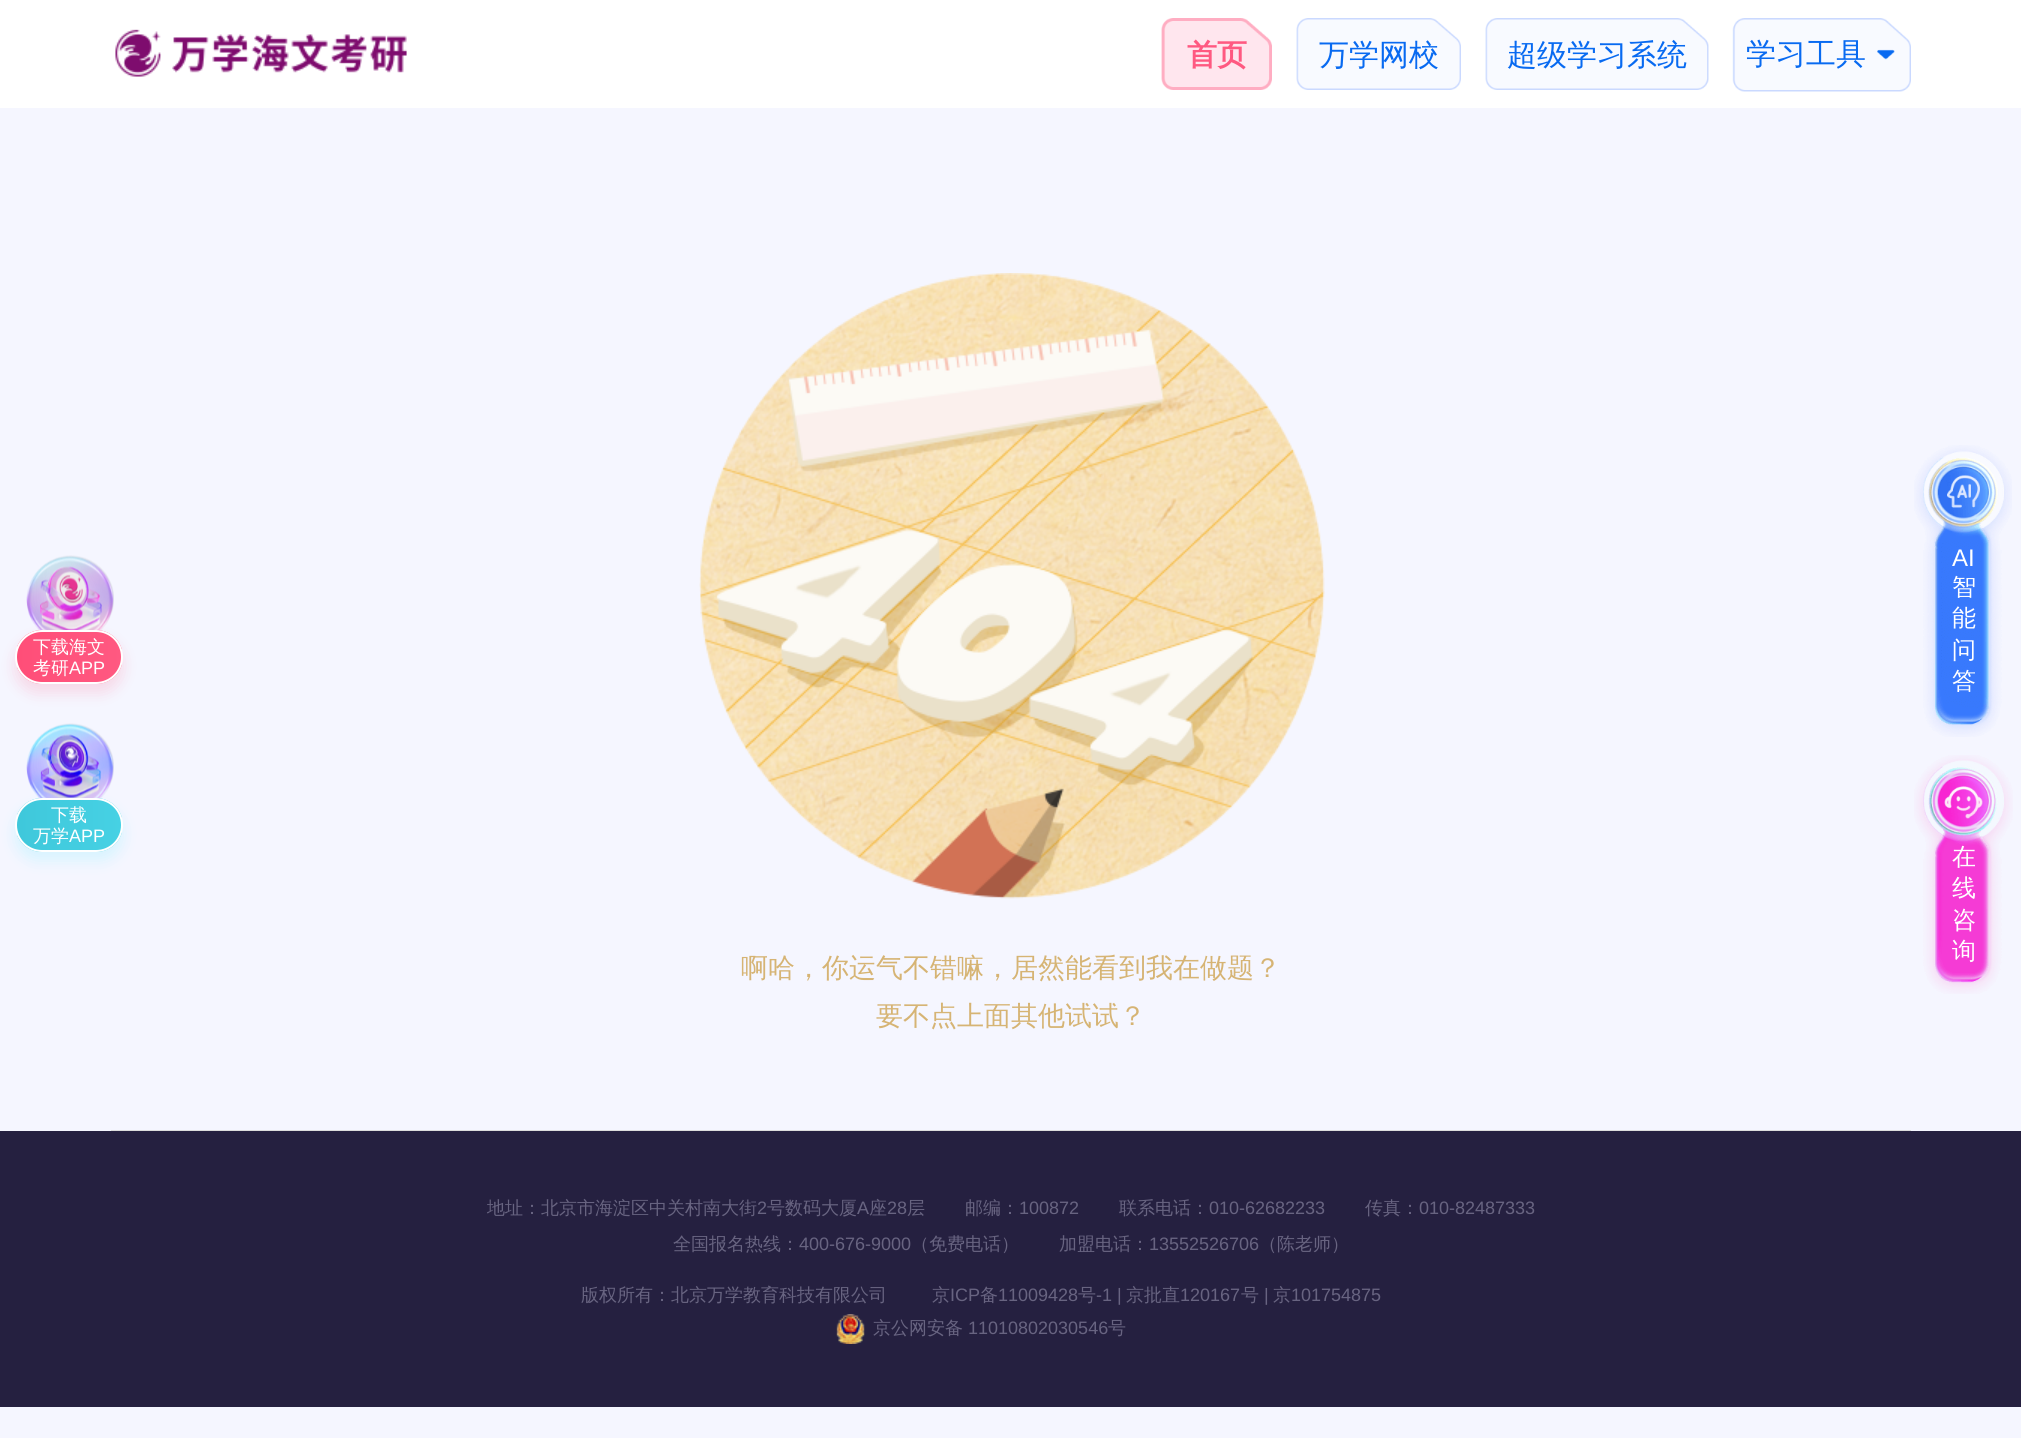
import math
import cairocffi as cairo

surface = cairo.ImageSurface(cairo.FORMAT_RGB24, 2021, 1438)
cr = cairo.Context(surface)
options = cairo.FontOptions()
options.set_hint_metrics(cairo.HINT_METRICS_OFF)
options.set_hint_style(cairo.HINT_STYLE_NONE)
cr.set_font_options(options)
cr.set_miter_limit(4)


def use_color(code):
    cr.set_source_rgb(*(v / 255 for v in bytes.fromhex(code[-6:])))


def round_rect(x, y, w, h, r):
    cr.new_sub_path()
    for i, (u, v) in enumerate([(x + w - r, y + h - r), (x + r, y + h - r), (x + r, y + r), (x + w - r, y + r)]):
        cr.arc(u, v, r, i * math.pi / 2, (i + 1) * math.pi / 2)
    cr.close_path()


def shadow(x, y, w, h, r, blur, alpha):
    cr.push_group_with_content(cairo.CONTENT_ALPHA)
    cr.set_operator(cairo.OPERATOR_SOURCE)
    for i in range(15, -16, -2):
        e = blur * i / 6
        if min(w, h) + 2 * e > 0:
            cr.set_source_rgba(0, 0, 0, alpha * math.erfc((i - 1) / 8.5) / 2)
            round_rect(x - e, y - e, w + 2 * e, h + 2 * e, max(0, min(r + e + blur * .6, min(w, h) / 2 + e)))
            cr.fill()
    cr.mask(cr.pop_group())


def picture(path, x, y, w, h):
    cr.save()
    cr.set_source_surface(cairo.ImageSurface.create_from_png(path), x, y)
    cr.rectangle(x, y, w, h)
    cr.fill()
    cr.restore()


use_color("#f5f6ff")
cr.paint()
use_color("#ffffff")
cr.rectangle(0, 0, 2021, 108)
cr.fill()
picture("img1.png", 115, 29, 292, 48)
picture("img2.png", 1161, 18, 111, 72)
cr.select_font_face("WenQuanYi Zen Hei", cairo.FONT_SLANT_NORMAL, cairo.FONT_WEIGHT_BOLD)
cr.set_font_size(30)
use_color("#ff5981")
cr.move_to(1187, 65)
cr.show_text("首页")
picture("img3.png", 1296, 18, 165, 72)
cr.select_font_face("WenQuanYi Zen Hei Medium")
use_color("#086af1")
cr.move_to(1319, 65)
cr.show_text("万学网校")
picture("img4.png", 1485, 18, 224, 72)
cr.move_to(1507, 65)
cr.show_text("超级学习系统")
picture("img5.png", 1732, 18, 179, 74)
picture("img6.png", 1877, 49, 18, 11)
cr.move_to(1746, 64)
cr.show_text("学习工具")
picture("img7.png", 26, 555, 88, 76)
use_color("#ff2d5f")
shadow(15, 639, 108, 54, 27, 7.5, 0.15)
cr.save()
round_rect(15, 630, 108, 54, 27)
cr.clip()
gradient = cairo.LinearGradient(17, 657, 122, 657)
gradient.add_color_stop_rgba(0.01, 1, 0.306, 0.471, 1)
gradient.add_color_stop_rgba(1, 1, 0.349, 0.506, 1)
cr.set_source(gradient)
cr.rectangle(17, 630, 105, 54)
cr.fill()
cr.restore()
round_rect(16, 631, 106, 52, 26)
use_color("#ffffff")
cr.stroke()
cr.set_font_size(18)
cr.move_to(33, 653)
cr.show_text("下载海文")
cr.move_to(33, 674)
cr.show_text("考研")
cr.select_font_face("Liberation Sans")
cr.move_to(69, 674)
cr.show_text("APP")
picture("img8.png", 26, 723, 88, 76)
use_color("#2ce6ff")
shadow(15, 807, 108, 54, 27, 7.5, 0.15)
cr.save()
round_rect(15, 798, 108, 54, 27)
cr.clip()
gradient = cairo.LinearGradient(17, 825, 122, 825)
gradient.add_color_stop_rgba(0.01, 0.247, 0.784, 0.859, 1)
gradient.add_color_stop_rgba(1, 0.275, 0.82, 0.894, 1)
cr.set_source(gradient)
cr.rectangle(17, 798, 105, 54)
cr.fill()
cr.restore()
round_rect(16, 799, 106, 52, 26)
use_color("#ffffff")
cr.stroke()
cr.select_font_face("WenQuanYi Zen Hei Medium")
cr.move_to(51, 821)
cr.show_text("下载")
cr.move_to(33, 842)
cr.show_text("万学")
cr.select_font_face("Liberation Sans")
cr.move_to(69, 842)
cr.show_text("APP")
picture("img9.png", 1914, 445, 98, 292)
cr.set_font_size(24)
cr.move_to(1952, 566)
cr.show_text("AI")
cr.select_font_face("WenQuanYi Zen Hei Medium")
cr.move_to(1952, 595)
cr.show_text("智")
cr.move_to(1952, 626)
cr.show_text("能")
cr.move_to(1952, 658)
cr.show_text("问")
cr.move_to(1952, 689)
cr.show_text("答")
picture("img10.png", 1914, 755, 99, 239)
cr.move_to(1952, 865)
cr.show_text("在")
cr.move_to(1952, 896)
cr.show_text("线")
cr.move_to(1952, 928)
cr.show_text("咨")
cr.move_to(1952, 959)
cr.show_text("询")
use_color("#dddddd")
cr.rectangle(111, 1130, 1800, 1)
cr.fill()
picture("img11.png", 699, 273, 626, 626)
cr.set_font_size(27)
use_color("#d6b474")
cr.move_to(741, 977)
cr.show_text("啊哈，你运气不错嘛，居然能看到我在做题？")
cr.move_to(876, 1025)
cr.show_text("要不点上面其他试试？")
use_color("#252040")
cr.rectangle(0, 1131, 2021, 276)
cr.fill()
cr.set_font_size(18)
use_color("#686481")
cr.move_to(487, 1214)
cr.show_text("地址：北京市海淀区中关村南大街")
cr.select_font_face("Liberation Sans")
cr.move_to(757, 1214)
cr.show_text("2")
cr.select_font_face("WenQuanYi Zen Hei Medium")
cr.move_to(767, 1214)
cr.show_text("号数码大厦")
cr.select_font_face("Liberation Sans")
cr.move_to(857, 1214)
cr.show_text("A")
cr.select_font_face("WenQuanYi Zen Hei Medium")
cr.move_to(869, 1214)
cr.show_text("座")
cr.select_font_face("Liberation Sans")
cr.move_to(887, 1214)
cr.show_text("28")
cr.select_font_face("WenQuanYi Zen Hei Medium")
cr.move_to(907, 1214)
cr.show_text("层")
cr.move_to(965, 1214)
cr.show_text("邮编：")
cr.select_font_face("Liberation Sans")
cr.move_to(1019, 1214)
cr.show_text("100872")
cr.select_font_face("WenQuanYi Zen Hei Medium")
cr.move_to(1119, 1214)
cr.show_text("联系电话：")
cr.select_font_face("Liberation Sans")
cr.move_to(1209, 1214)
cr.show_text("010-62682233")
cr.select_font_face("WenQuanYi Zen Hei Medium")
cr.move_to(1365, 1214)
cr.show_text("传真：")
cr.select_font_face("Liberation Sans")
cr.move_to(1419, 1214)
cr.show_text("010-82487333")
cr.select_font_face("WenQuanYi Zen Hei Medium")
cr.move_to(673, 1250)
cr.show_text("全国报名热线：")
cr.select_font_face("Liberation Sans")
cr.move_to(799, 1250)
cr.show_text("400-676-9000")
cr.select_font_face("WenQuanYi Zen Hei Medium")
cr.move_to(911, 1250)
cr.show_text("（免费电话）")
cr.move_to(1059, 1250)
cr.show_text("加盟电话：")
cr.select_font_face("Liberation Sans")
cr.move_to(1149, 1250)
cr.show_text("13552526706")
cr.select_font_face("WenQuanYi Zen Hei Medium")
cr.move_to(1259, 1250)
cr.show_text("（陈老师）")
cr.move_to(581, 1301)
cr.show_text("版权所有：北京万学教育科技有限公司")
cr.move_to(932, 1301)
cr.show_text("京")
cr.select_font_face("Liberation Sans")
cr.move_to(950, 1301)
cr.show_text("ICP")
cr.select_font_face("WenQuanYi Zen Hei Medium")
cr.move_to(980, 1301)
cr.show_text("备")
cr.select_font_face("Liberation Sans")
cr.move_to(998, 1301)
cr.show_text("11009428")
cr.select_font_face("WenQuanYi Zen Hei Medium")
cr.move_to(1078, 1301)
cr.show_text("号")
cr.select_font_face("Liberation Sans")
cr.move_to(1096, 1301)
cr.show_text("-1 |")
cr.select_font_face("WenQuanYi Zen Hei Medium")
cr.move_to(1126, 1301)
cr.show_text("京批直")
cr.select_font_face("Liberation Sans")
cr.move_to(1180, 1301)
cr.show_text("120167")
cr.select_font_face("WenQuanYi Zen Hei Medium")
cr.move_to(1241, 1301)
cr.show_text("号")
cr.select_font_face("Liberation Sans")
cr.move_to(1264, 1301)
cr.show_text("|")
cr.select_font_face("WenQuanYi Zen Hei Medium")
cr.move_to(1273, 1301)
cr.show_text("京")
cr.select_font_face("Liberation Sans")
cr.move_to(1291, 1301)
cr.show_text("101754875")
picture("img12.png", 836, 1314, 29, 30)
cr.select_font_face("WenQuanYi Zen Hei Medium")
cr.move_to(873, 1334)
cr.show_text("京公网安备")
cr.select_font_face("Liberation Sans")
cr.move_to(968, 1334)
cr.show_text("11010802030546")
cr.select_font_face("WenQuanYi Zen Hei Medium")
cr.move_to(1108, 1334)
cr.show_text("号")
surface.write_to_png("result.png")
